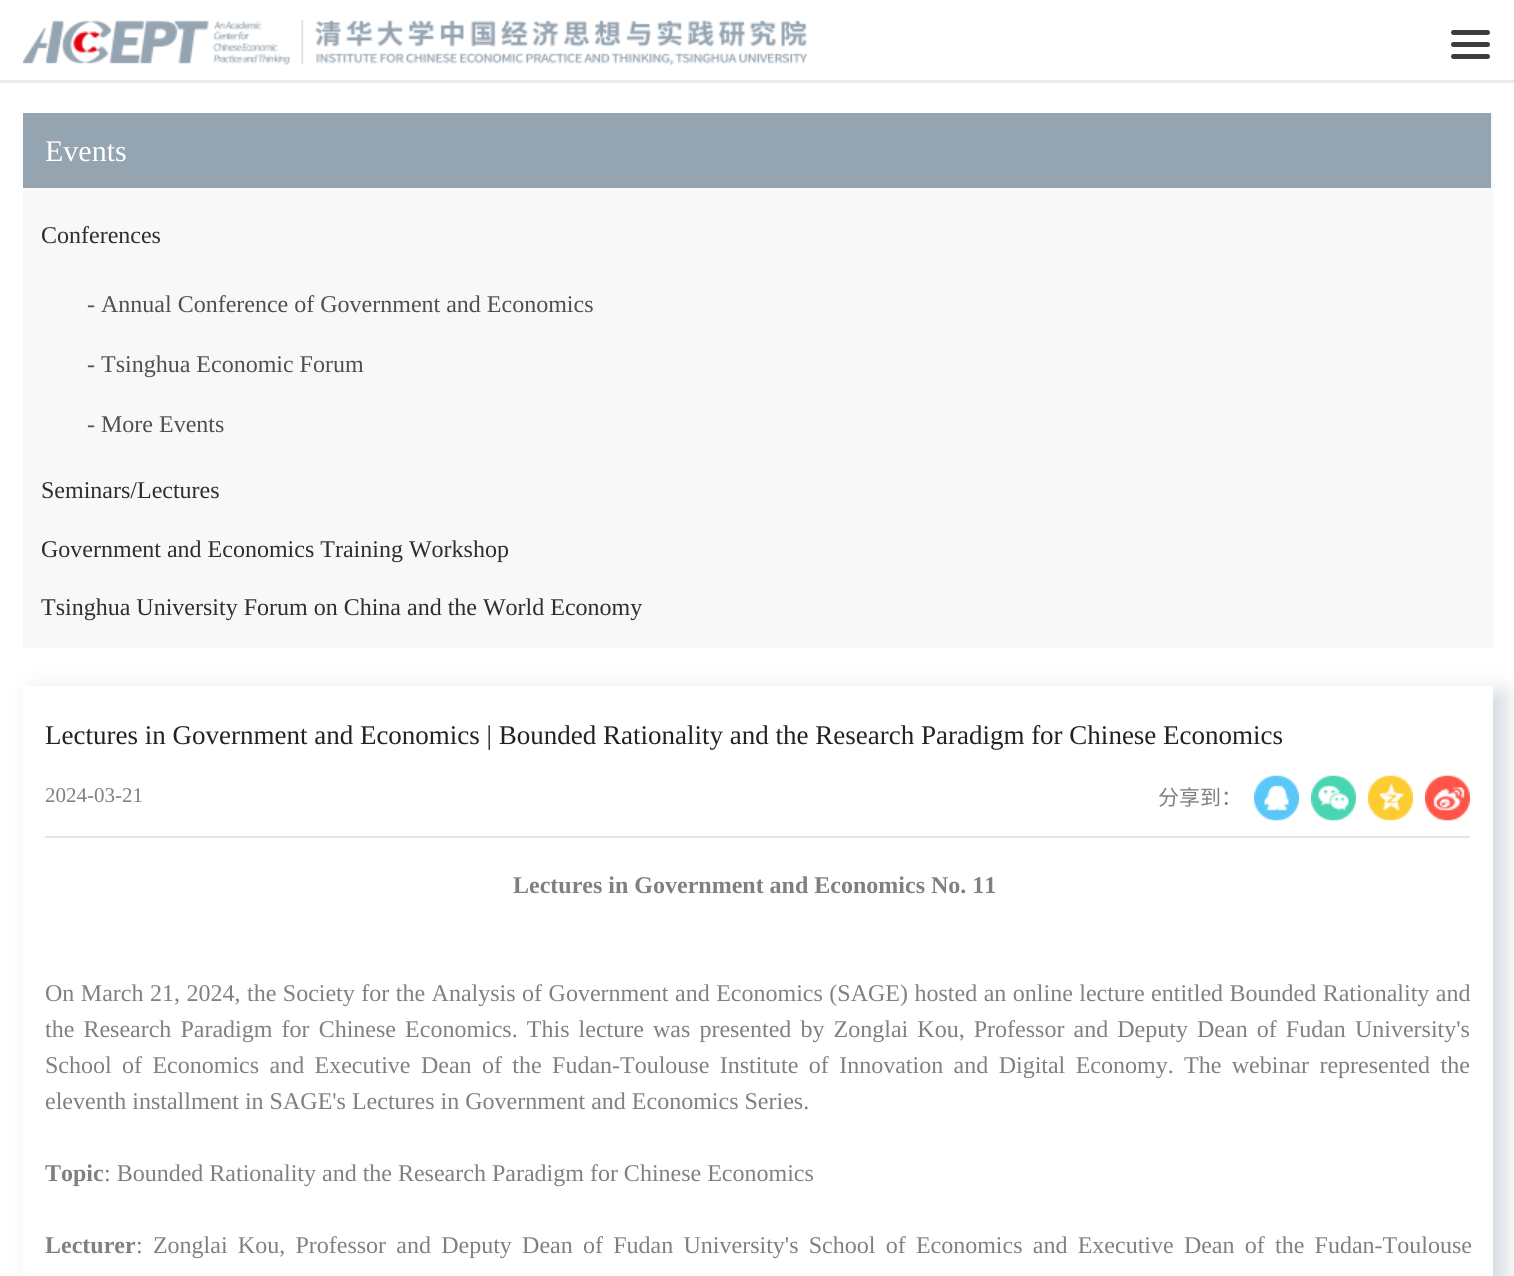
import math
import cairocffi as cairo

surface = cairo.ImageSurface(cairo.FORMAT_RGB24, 1514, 1276)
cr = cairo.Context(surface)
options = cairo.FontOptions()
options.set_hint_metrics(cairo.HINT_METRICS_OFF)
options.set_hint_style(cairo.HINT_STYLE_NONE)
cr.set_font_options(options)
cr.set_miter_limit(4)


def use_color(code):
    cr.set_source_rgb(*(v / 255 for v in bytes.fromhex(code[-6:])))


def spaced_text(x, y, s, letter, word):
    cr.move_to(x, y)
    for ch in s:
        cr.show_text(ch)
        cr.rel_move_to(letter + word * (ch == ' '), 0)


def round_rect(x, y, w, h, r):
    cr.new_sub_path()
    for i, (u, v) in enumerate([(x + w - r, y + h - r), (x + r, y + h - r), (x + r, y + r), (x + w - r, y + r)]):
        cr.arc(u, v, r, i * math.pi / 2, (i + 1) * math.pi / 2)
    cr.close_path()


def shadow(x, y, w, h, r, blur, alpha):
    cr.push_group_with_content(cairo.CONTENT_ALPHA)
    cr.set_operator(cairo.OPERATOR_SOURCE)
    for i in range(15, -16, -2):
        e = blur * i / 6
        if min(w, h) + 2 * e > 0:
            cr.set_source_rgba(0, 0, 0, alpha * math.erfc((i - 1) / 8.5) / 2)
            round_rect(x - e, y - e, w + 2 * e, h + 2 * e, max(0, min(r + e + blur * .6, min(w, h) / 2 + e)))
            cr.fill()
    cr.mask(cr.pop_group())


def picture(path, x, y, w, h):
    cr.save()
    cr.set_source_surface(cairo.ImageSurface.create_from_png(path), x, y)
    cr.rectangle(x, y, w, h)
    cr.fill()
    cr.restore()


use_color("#ffffff")
cr.paint()
use_color("#eaeaea")
cr.rectangle(0, 80, 1514, 3)
cr.fill()
picture("img1.png", 23, 20, 784, 45)
use_color("#3c3c3c")
round_rect(1451, 30, 39, 5, 2.5)
cr.fill()
round_rect(1451, 42, 39, 5, 2.5)
cr.fill()
round_rect(1451, 54, 39, 5, 2.5)
cr.fill()
use_color("#f8f8f8")
cr.rectangle(23, 113, 1470, 535)
cr.fill()
use_color("#95a4b1")
cr.rectangle(23, 113, 1468, 75)
cr.fill()
cr.select_font_face("Liberation Serif")
cr.set_font_size(30)
use_color("#ffffff")
cr.move_to(45, 161)
cr.show_text("Events")
cr.set_font_size(24)
use_color("#2e2e2e")
cr.move_to(41, 243)
cr.show_text("Conferences")
use_color("#4f4f4f")
cr.move_to(87, 312)
cr.show_text("- Annual Conference of Government and Economics")
cr.move_to(87, 372)
cr.show_text("- Tsinghua Economic Forum")
cr.move_to(87, 432)
cr.show_text("- More Events")
use_color("#2e2e2e")
cr.move_to(41, 498)
cr.show_text("Seminars/Lectures")
cr.move_to(41, 557)
cr.show_text("Government and Economics Training Workshop")
cr.move_to(41, 615)
cr.show_text("Tsinghua University Forum on China and the World Economy")
use_color("#95a4b1")
shadow(35, 693, 1470, 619, 0, 12, 0.42)
use_color("#ffffff")
cr.rectangle(23, 686, 1470, 590)
cr.fill()
cr.set_font_size(27)
use_color("#222222")
cr.move_to(45, 744)
cr.show_text("Lectures in Government and Economics | Bounded Rationality and the Research Paradigm for Chinese Economics")
use_color("#e5e5e5")
cr.rectangle(45, 836, 1425, 2)
cr.fill()
cr.set_font_size(21)
use_color("#808080")
cr.move_to(45, 802)
cr.show_text("2024-03-21")
cr.select_font_face("Noto Sans CJK SC")
cr.move_to(1158, 805)
cr.show_text("分享到：")
picture("img2.png", 1254, 775, 45, 46)
picture("img3.png", 1311, 775, 45, 46)
picture("img4.png", 1368, 775, 45, 46)
picture("img5.png", 1425, 775, 45, 46)
cr.select_font_face("Liberation Serif", cairo.FONT_SLANT_NORMAL, cairo.FONT_WEIGHT_BOLD)
cr.set_font_size(24)
cr.move_to(513, 893)
cr.show_text("Lectures in Government and Economics No. 11")
cr.select_font_face("Liberation Serif")
spaced_text(45, 1001, "On March 21, 2024, the Society for the Analysis of Government and Economics (SAGE) hosted an online lecture entitled Bounded Rationality and", 0, 0.5)
spaced_text(45, 1037, "the Research Paradigm for Chinese Economics. This lecture was presented by Zonglai Kou, Professor and Deputy Dean of Fudan University's", 0, 3.1)
spaced_text(45, 1073, "School of Economics and Executive Dean of the Fudan-Toulouse Institute of Innovation and Digital Economy. The webinar represented the", 0, 4.4)
cr.move_to(45, 1109)
cr.show_text("eleventh installment in SAGE's Lectures in Government and Economics Series.")
cr.select_font_face("Liberation Serif", cairo.FONT_SLANT_NORMAL, cairo.FONT_WEIGHT_BOLD)
cr.move_to(45, 1181)
cr.show_text("Topic")
cr.select_font_face("Liberation Serif")
cr.move_to(104, 1181)
cr.show_text(": Bounded Rationality and the Research Paradigm for Chinese Economics")
cr.select_font_face("Liberation Serif", cairo.FONT_SLANT_NORMAL, cairo.FONT_WEIGHT_BOLD)
cr.move_to(45, 1253)
cr.show_text("Lecturer")
cr.select_font_face("Liberation Serif")
spaced_text(136, 1253, ": Zonglai Kou, Professor and Deputy Dean of Fudan University's School of Economics and Executive Dean of the Fudan-Toulouse", 0, 4.25)
surface.write_to_png("result.png")
